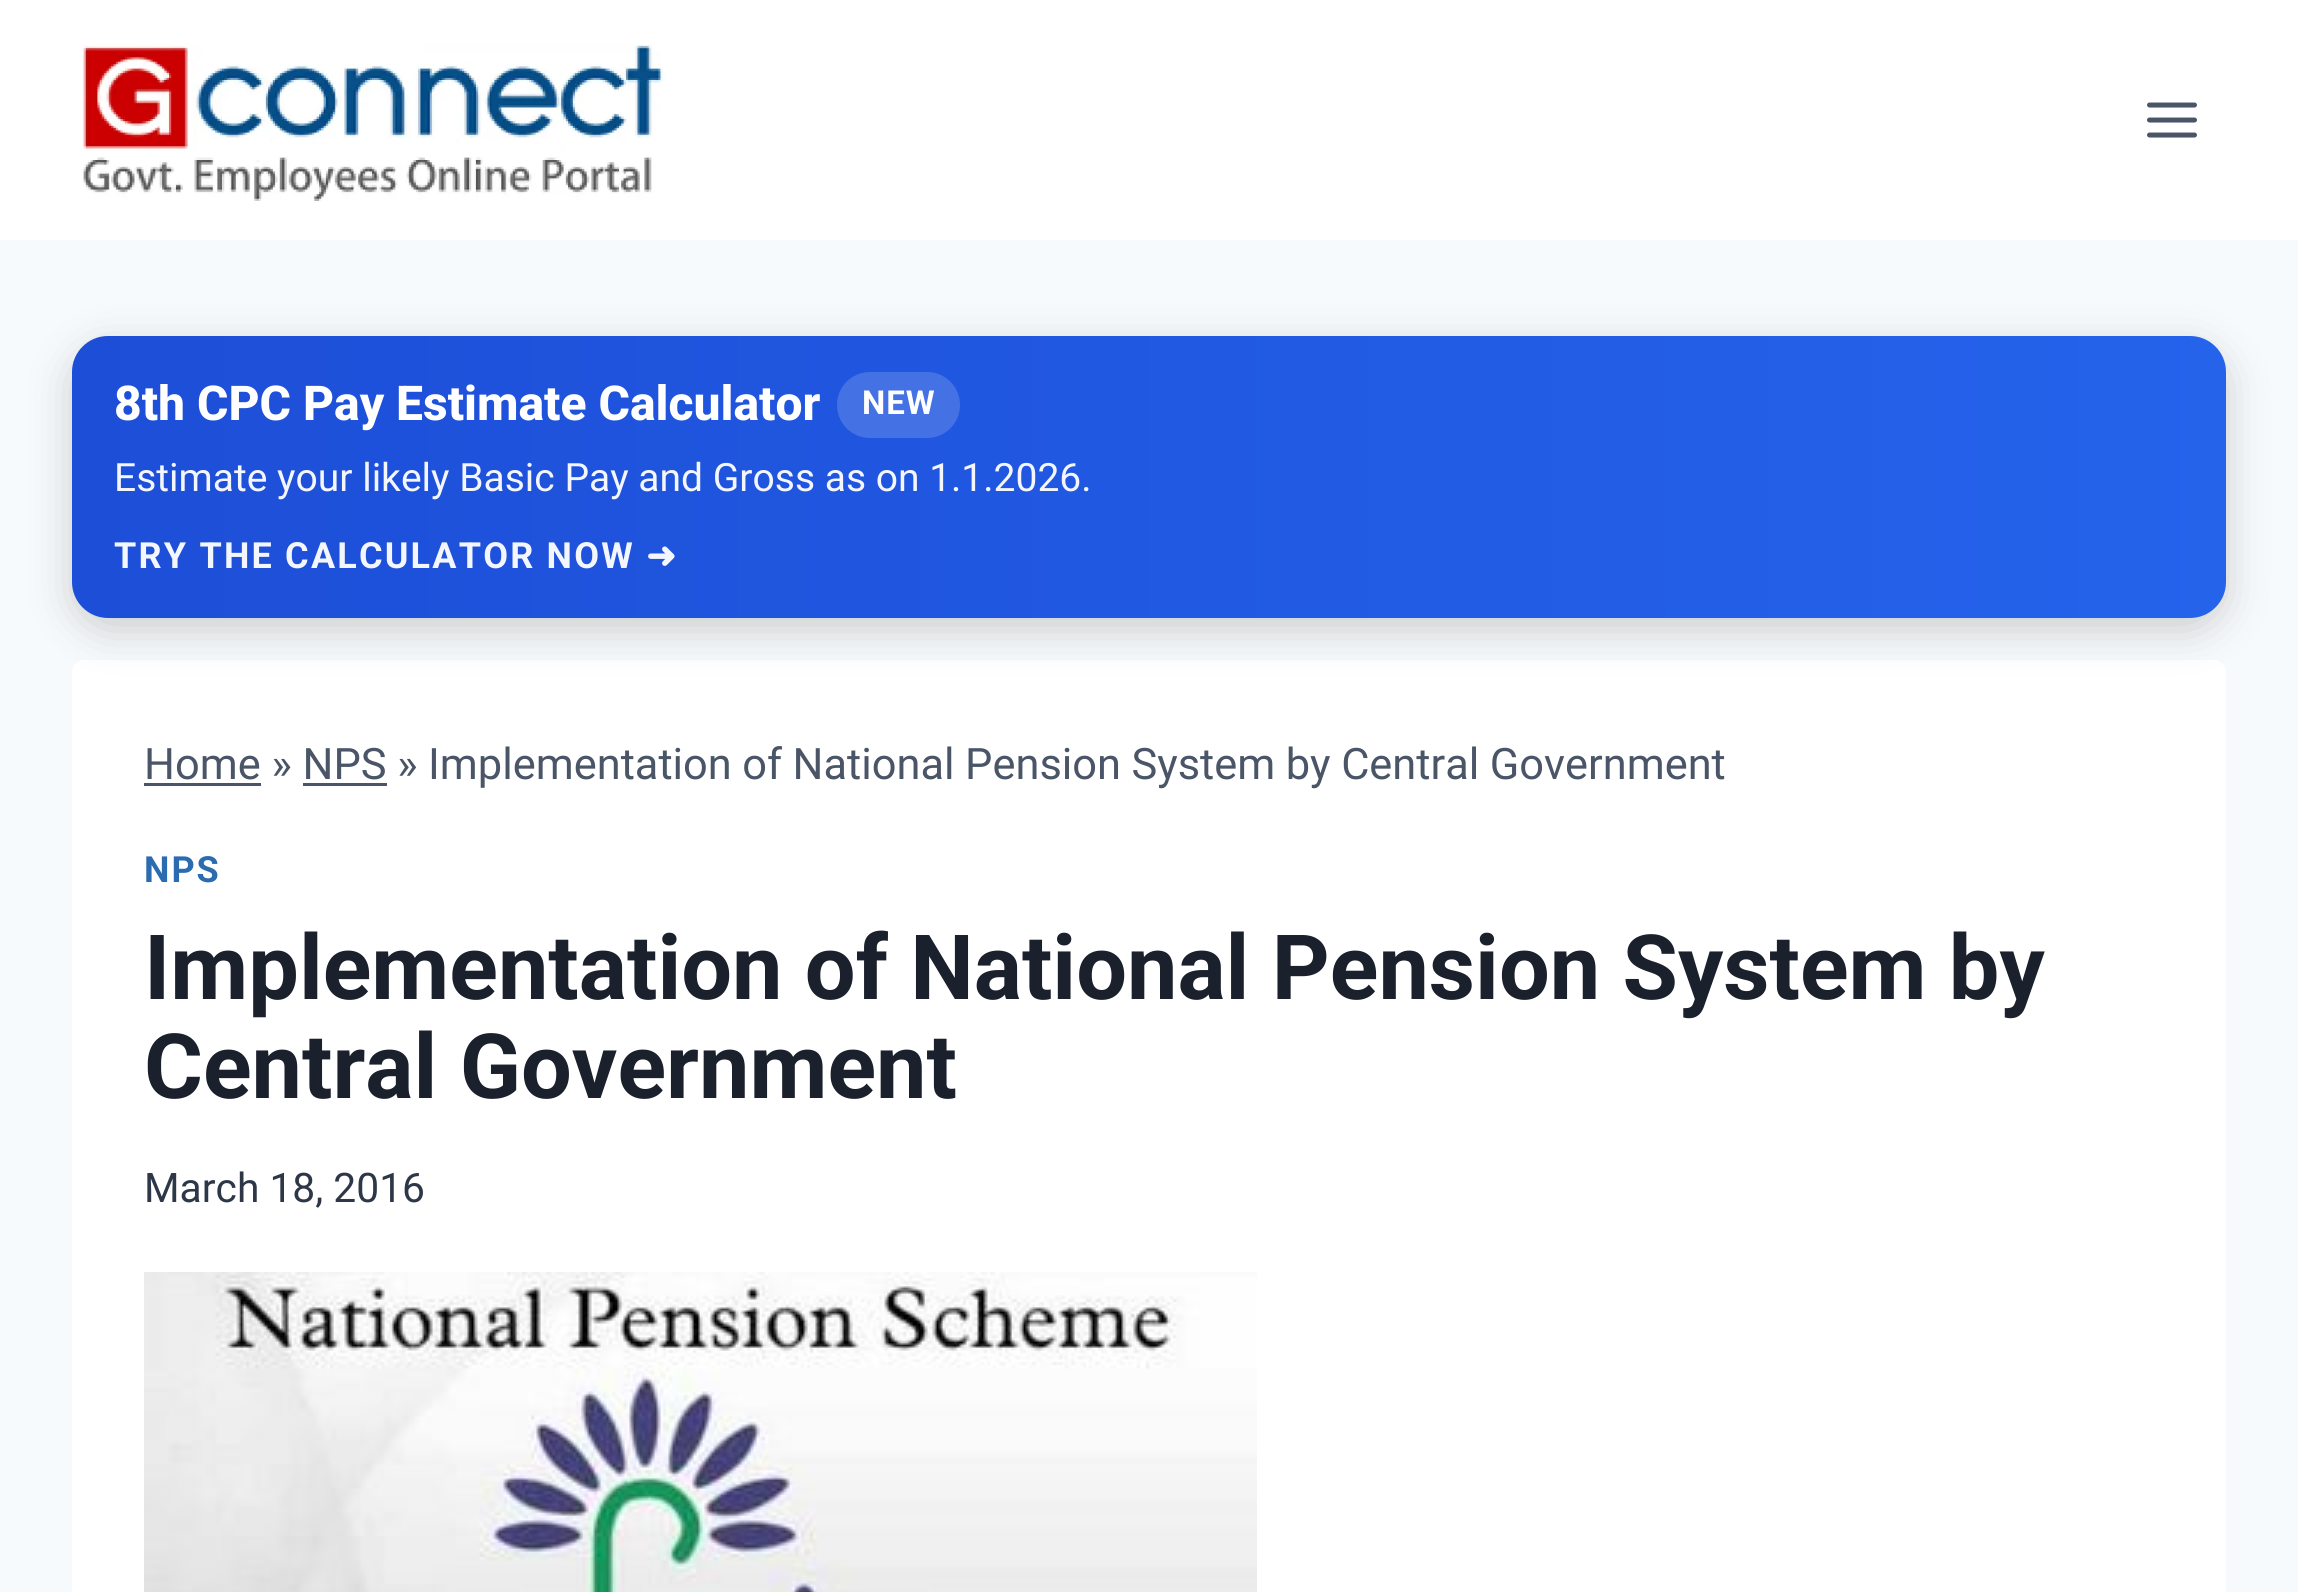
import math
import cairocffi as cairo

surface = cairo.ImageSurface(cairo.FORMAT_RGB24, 2298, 1592)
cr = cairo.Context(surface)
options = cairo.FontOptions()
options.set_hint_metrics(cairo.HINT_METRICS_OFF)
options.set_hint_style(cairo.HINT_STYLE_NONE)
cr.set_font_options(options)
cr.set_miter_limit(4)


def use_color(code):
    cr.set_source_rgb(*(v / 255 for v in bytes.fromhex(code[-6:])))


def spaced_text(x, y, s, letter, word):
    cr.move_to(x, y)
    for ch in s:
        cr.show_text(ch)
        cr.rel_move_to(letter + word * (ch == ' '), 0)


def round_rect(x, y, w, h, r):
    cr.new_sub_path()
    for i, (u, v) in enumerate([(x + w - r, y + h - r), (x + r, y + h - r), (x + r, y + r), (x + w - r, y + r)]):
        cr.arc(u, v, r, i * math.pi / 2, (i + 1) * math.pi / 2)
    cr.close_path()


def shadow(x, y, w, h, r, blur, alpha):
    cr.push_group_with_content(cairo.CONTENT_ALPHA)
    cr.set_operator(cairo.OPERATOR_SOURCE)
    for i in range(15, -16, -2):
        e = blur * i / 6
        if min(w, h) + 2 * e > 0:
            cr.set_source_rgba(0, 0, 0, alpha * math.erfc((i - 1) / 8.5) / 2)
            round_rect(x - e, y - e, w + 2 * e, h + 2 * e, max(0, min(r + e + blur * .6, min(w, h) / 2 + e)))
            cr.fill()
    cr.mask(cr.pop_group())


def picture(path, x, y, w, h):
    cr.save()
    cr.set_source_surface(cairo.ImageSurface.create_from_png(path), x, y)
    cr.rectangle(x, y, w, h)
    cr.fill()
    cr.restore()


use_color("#f7fafc")
cr.paint()
use_color("#ffffff")
cr.rectangle(0, 0, 2298, 240)
cr.fill()
picture("img1.png", 81, 44, 585, 157)
picture("img2.png", 2147, 102, 50, 36)
round_rect(72, 660, 2154, 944, 12)
cr.fill()
use_color("#000000")
shadow(72, 348, 2154, 282, 36, 21, 0.18)
gradient = cairo.LinearGradient(72, 477, 2226, 477)
gradient.add_color_stop_rgba(0, 0.114, 0.306, 0.847, 1)
gradient.add_color_stop_rgba(1, 0.145, 0.388, 0.922, 1)
cr.set_source(gradient)
round_rect(72, 336, 2154, 282, 36)
cr.fill()
cr.select_font_face("Roboto ExtraBold")
cr.set_font_size(48)
use_color("#ffffff")
cr.move_to(114, 420)
cr.show_text("8th CPC Pay Estimate Calculator")
use_color("#4471e4")
round_rect(837, 372, 123, 66, 33)
cr.fill()
cr.select_font_face("Roboto", cairo.FONT_SLANT_NORMAL, cairo.FONT_WEIGHT_BOLD)
cr.set_font_size(33)
use_color("#ffffff")
spaced_text(862, 414, "NEW", 1, 0)
cr.select_font_face("Roboto")
cr.set_font_size(39)
use_color("#f4f6fd")
cr.move_to(114, 491)
cr.show_text("Estimate your likely Basic Pay and Gross as on 1.1.2026.")
cr.select_font_face("Roboto", cairo.FONT_SLANT_NORMAL, cairo.FONT_WEIGHT_BOLD)
cr.set_font_size(36)
spaced_text(114, 568, "TRY THE CALCULATOR NOW", 2.2, 0)
cr.select_font_face("DejaVu Sans", cairo.FONT_SLANT_NORMAL, cairo.FONT_WEIGHT_BOLD)
spaced_text(646, 568, "➜", 2.2, 0)
cr.select_font_face("Roboto")
cr.set_font_size(43.35)
use_color("#4a5568")
cr.move_to(144, 779)
cr.show_text("Home » NPS »")
cr.rectangle(144, 783, 117, 3)
cr.fill()
spaced_text(428, 779, "Implementation of National Pension System by Central Government", 0, -0.25)
cr.rectangle(303, 783, 84, 3)
cr.fill()
cr.select_font_face("Roboto", cairo.FONT_SLANT_NORMAL, cairo.FONT_WEIGHT_BOLD)
cr.set_font_size(36)
use_color("#2b6cb0")
spaced_text(144, 882, "NPS", 2, 0)
cr.set_font_size(90)
use_color("#1a202c")
cr.move_to(144, 999)
cr.show_text("Implementation of National Pension System by")
cr.move_to(144, 1098)
cr.show_text("Central Government")
cr.select_font_face("Roboto")
cr.set_font_size(40.75)
use_color("#2d3748")
cr.move_to(144, 1202)
cr.show_text("March 18, 2016")
picture("img3.png", 144, 1272, 1113, 320)
surface.write_to_png("result.png")
